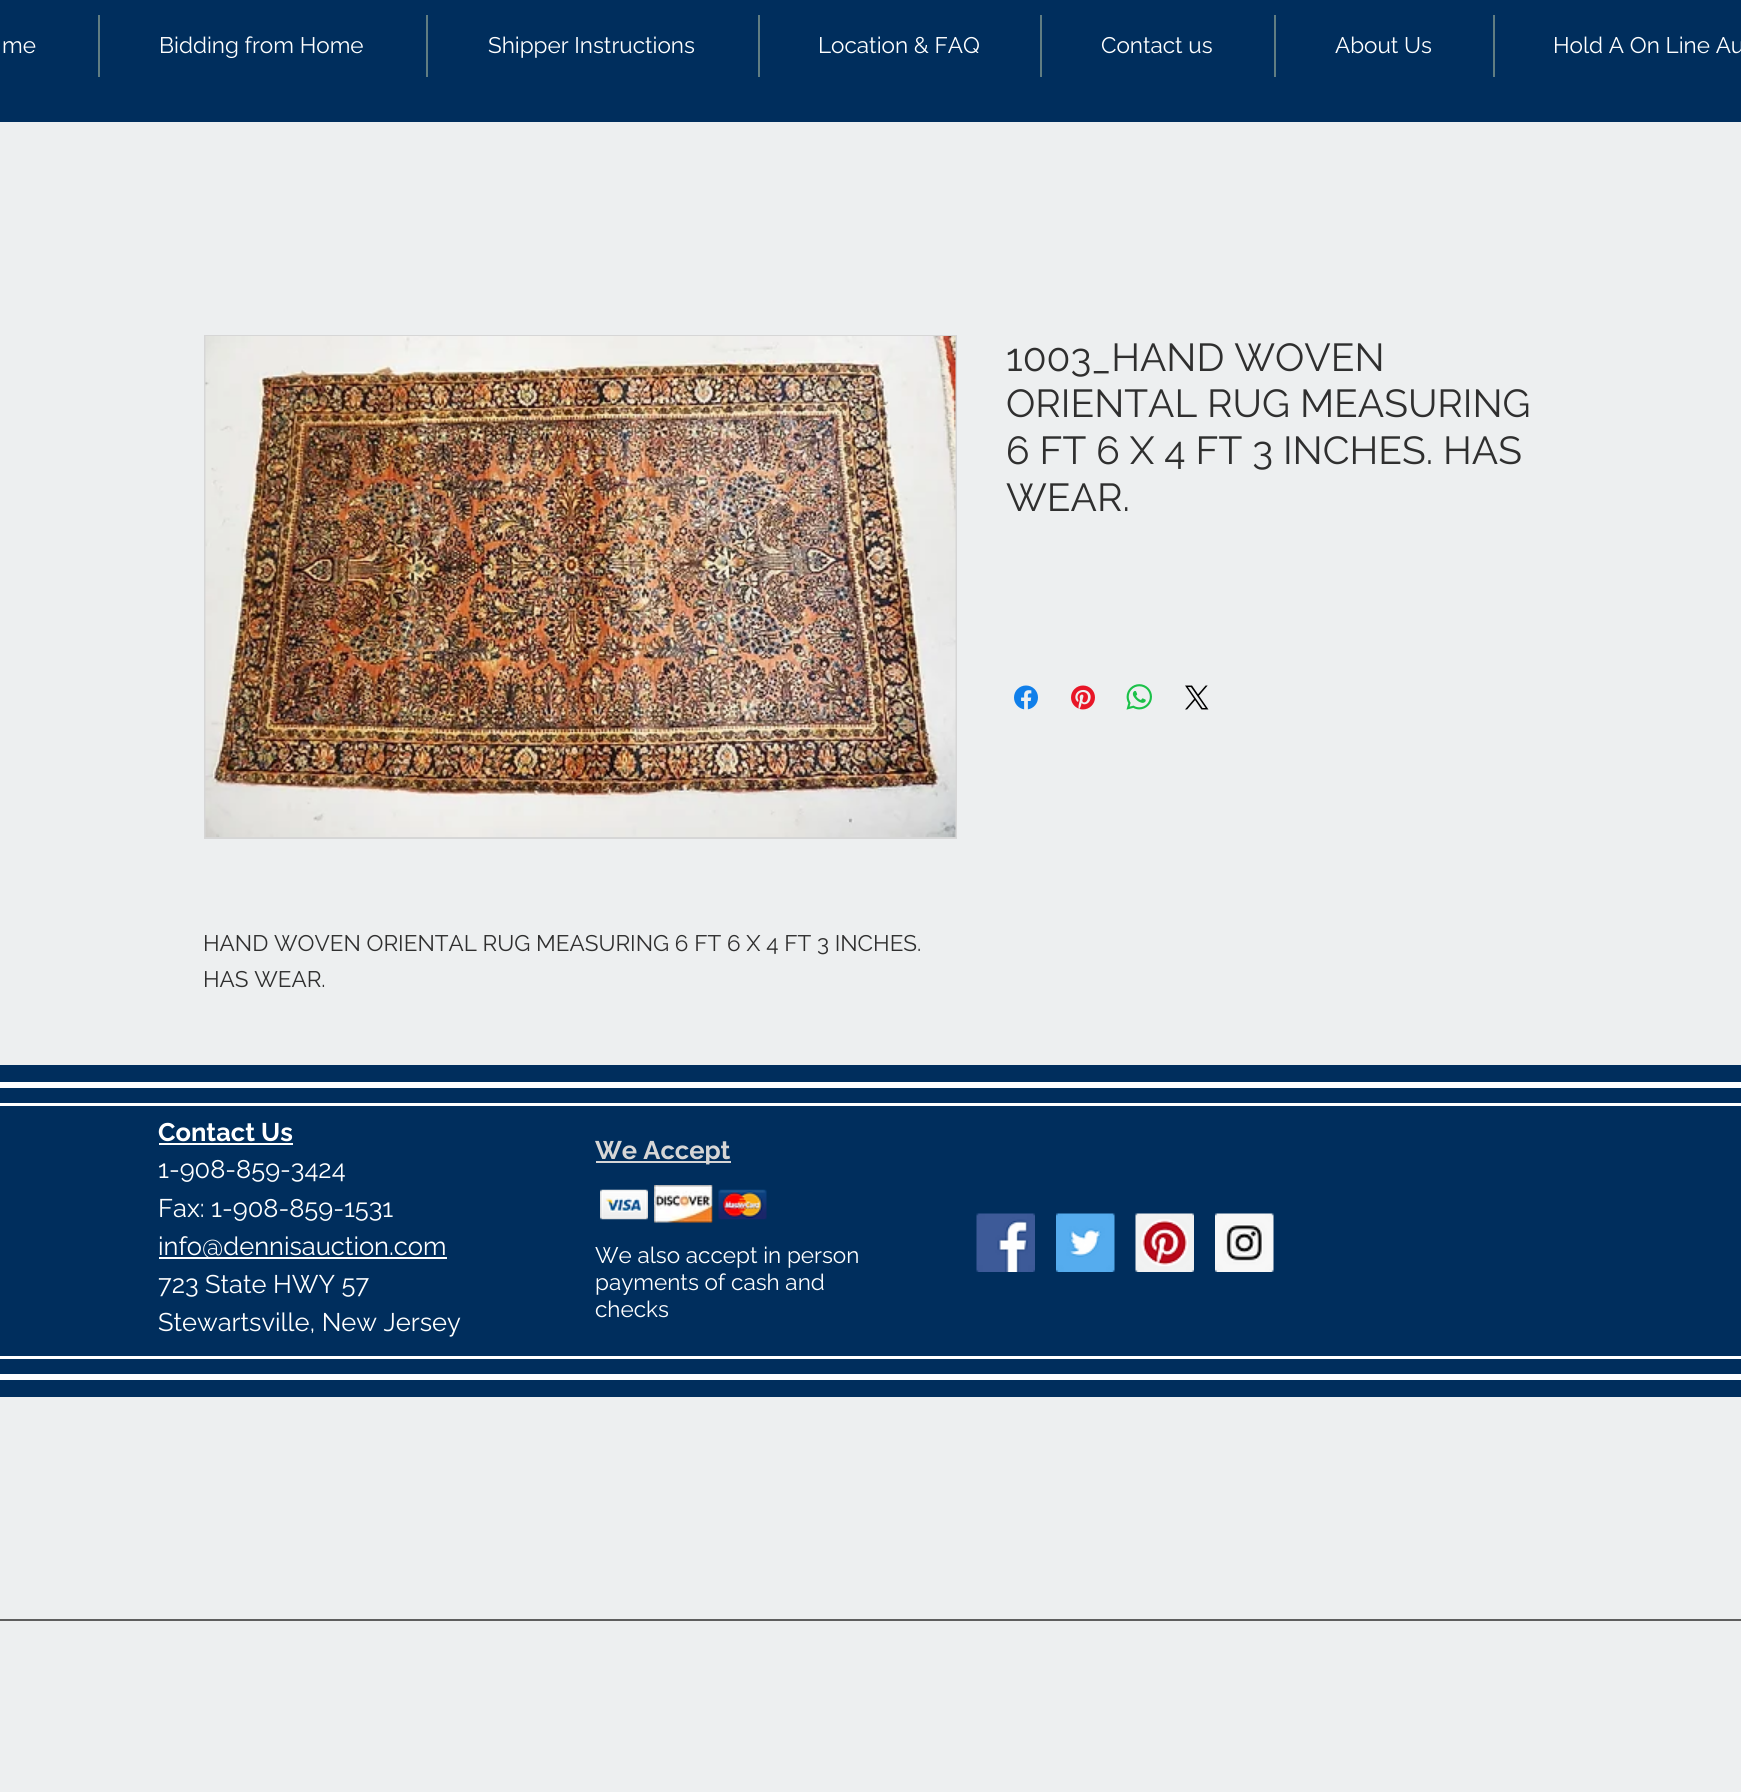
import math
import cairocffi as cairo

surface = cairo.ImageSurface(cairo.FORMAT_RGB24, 1741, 1792)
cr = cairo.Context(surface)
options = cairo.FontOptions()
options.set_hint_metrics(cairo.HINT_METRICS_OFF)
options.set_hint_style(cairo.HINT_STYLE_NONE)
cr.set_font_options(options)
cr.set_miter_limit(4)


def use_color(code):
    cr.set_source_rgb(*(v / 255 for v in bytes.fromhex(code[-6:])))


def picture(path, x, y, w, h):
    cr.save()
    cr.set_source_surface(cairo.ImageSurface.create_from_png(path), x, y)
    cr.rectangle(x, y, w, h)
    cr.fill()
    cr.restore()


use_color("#edeff0")
cr.paint()
use_color("#002e5d")
cr.rectangle(0, 0, 1741, 122)
cr.fill()
cr.select_font_face("Raleway")
cr.set_font_size(22.5)
use_color("#ffffff")
cr.move_to(2, 53)
cr.show_text("me")
use_color("#607d82")
cr.rectangle(98, 15, 2, 62)
cr.fill()
use_color("#ffffff")
cr.move_to(159, 53)
cr.show_text("Bidding from Home")
use_color("#607d82")
cr.rectangle(426, 15, 2, 62)
cr.fill()
use_color("#ffffff")
cr.move_to(488, 53)
cr.show_text("Shipper Instructions")
use_color("#607d82")
cr.rectangle(758, 15, 2, 62)
cr.fill()
use_color("#ffffff")
cr.move_to(818, 53)
cr.show_text("Location & FAQ")
use_color("#607d82")
cr.rectangle(1040, 15, 2, 62)
cr.fill()
use_color("#ffffff")
cr.move_to(1101, 53)
cr.show_text("Contact us")
use_color("#607d82")
cr.rectangle(1274, 15, 2, 62)
cr.fill()
use_color("#ffffff")
cr.move_to(1335, 53)
cr.show_text("About Us")
use_color("#607d82")
cr.rectangle(1493, 15, 2, 62)
cr.fill()
use_color("#ffffff")
cr.move_to(1553, 53)
cr.show_text("Hold A On Line Au")
cr.set_font_size(39)
use_color("#2f2f2f")
cr.move_to(1006, 371)
cr.show_text("1003_HAND WOVEN")
cr.move_to(1006, 417)
cr.show_text("ORIENTAL RUG MEASURING")
cr.move_to(1006, 464)
cr.show_text("6 FT 6 X 4 FT 3 INCHES. HAS")
cr.move_to(1006, 511)
cr.show_text("WEAR.")
picture("img1.png", 1014, 685, 24, 25)
picture("img2.png", 1071, 685, 24, 25)
picture("img3.png", 1126, 684, 26, 26)
picture("img4.png", 1185, 685, 24, 25)
cr.rectangle(205, 336, 751, 502)
use_color("#d6d6d6")
cr.stroke()
picture("img5.png", 205, 336, 751, 501)
cr.set_font_size(22.5)
use_color("#2f2f2f")
cr.move_to(203, 951)
cr.show_text("HAND WOVEN ORIENTAL RUG MEASURING 6 FT 6 X 4 FT 3 INCHES.")
cr.move_to(203, 987)
cr.show_text("HAS WEAR.")
use_color("#002e5d")
cr.rectangle(0, 1065, 1741, 332)
cr.fill()
use_color("#ffffff")
cr.rectangle(0, 1082, 1741, 6)
cr.fill()
cr.rectangle(0, 1374, 1741, 6)
cr.fill()
cr.rectangle(0, 1103, 1741, 3)
cr.fill()
cr.rectangle(0, 1356, 1741, 3)
cr.fill()
cr.select_font_face("Raleway", cairo.FONT_SLANT_NORMAL, cairo.FONT_WEIGHT_BOLD)
cr.set_font_size(25.5)
cr.move_to(158, 1141)
cr.show_text("Contact Us")
cr.rectangle(159, 1143, 134, 2)
cr.fill()
cr.select_font_face("Raleway")
cr.move_to(158, 1178)
cr.show_text("1-908-859-3424")
cr.move_to(158, 1217)
cr.show_text("Fax: 1-908-859-1531")
cr.rectangle(159, 1257, 288, 2)
cr.fill()
cr.move_to(158, 1255)
cr.show_text("info@dennisauction.com")
cr.move_to(158, 1293)
cr.show_text("723 State HWY 57")
cr.move_to(158, 1331)
cr.show_text("Stewartsville, New Jersey")
use_color("#d6d6d6")
cr.rectangle(596, 1161, 135, 2)
cr.fill()
cr.select_font_face("Raleway", cairo.FONT_SLANT_NORMAL, cairo.FONT_WEIGHT_BOLD)
cr.move_to(595, 1159)
cr.show_text("We Accept")
picture("img6.png", 600, 1189, 48, 31)
picture("img7.png", 654, 1185, 59, 38)
picture("img8.png", 718, 1189, 49, 31)
cr.select_font_face("Raleway")
cr.set_font_size(22.5)
use_color("#ffffff")
cr.move_to(595, 1263)
cr.show_text("We also accept in person")
cr.move_to(595, 1290)
cr.show_text("payments of cash and")
cr.move_to(595, 1317)
cr.show_text("checks")
picture("img9.png", 976, 1213, 59, 59)
picture("img10.png", 1056, 1213, 59, 59)
picture("img11.png", 1135, 1213, 59, 59)
picture("img12.png", 1215, 1213, 59, 59)
use_color("#5e5e5e")
cr.rectangle(0, 1619, 1741, 2)
cr.fill()
surface.write_to_png("result.png")
